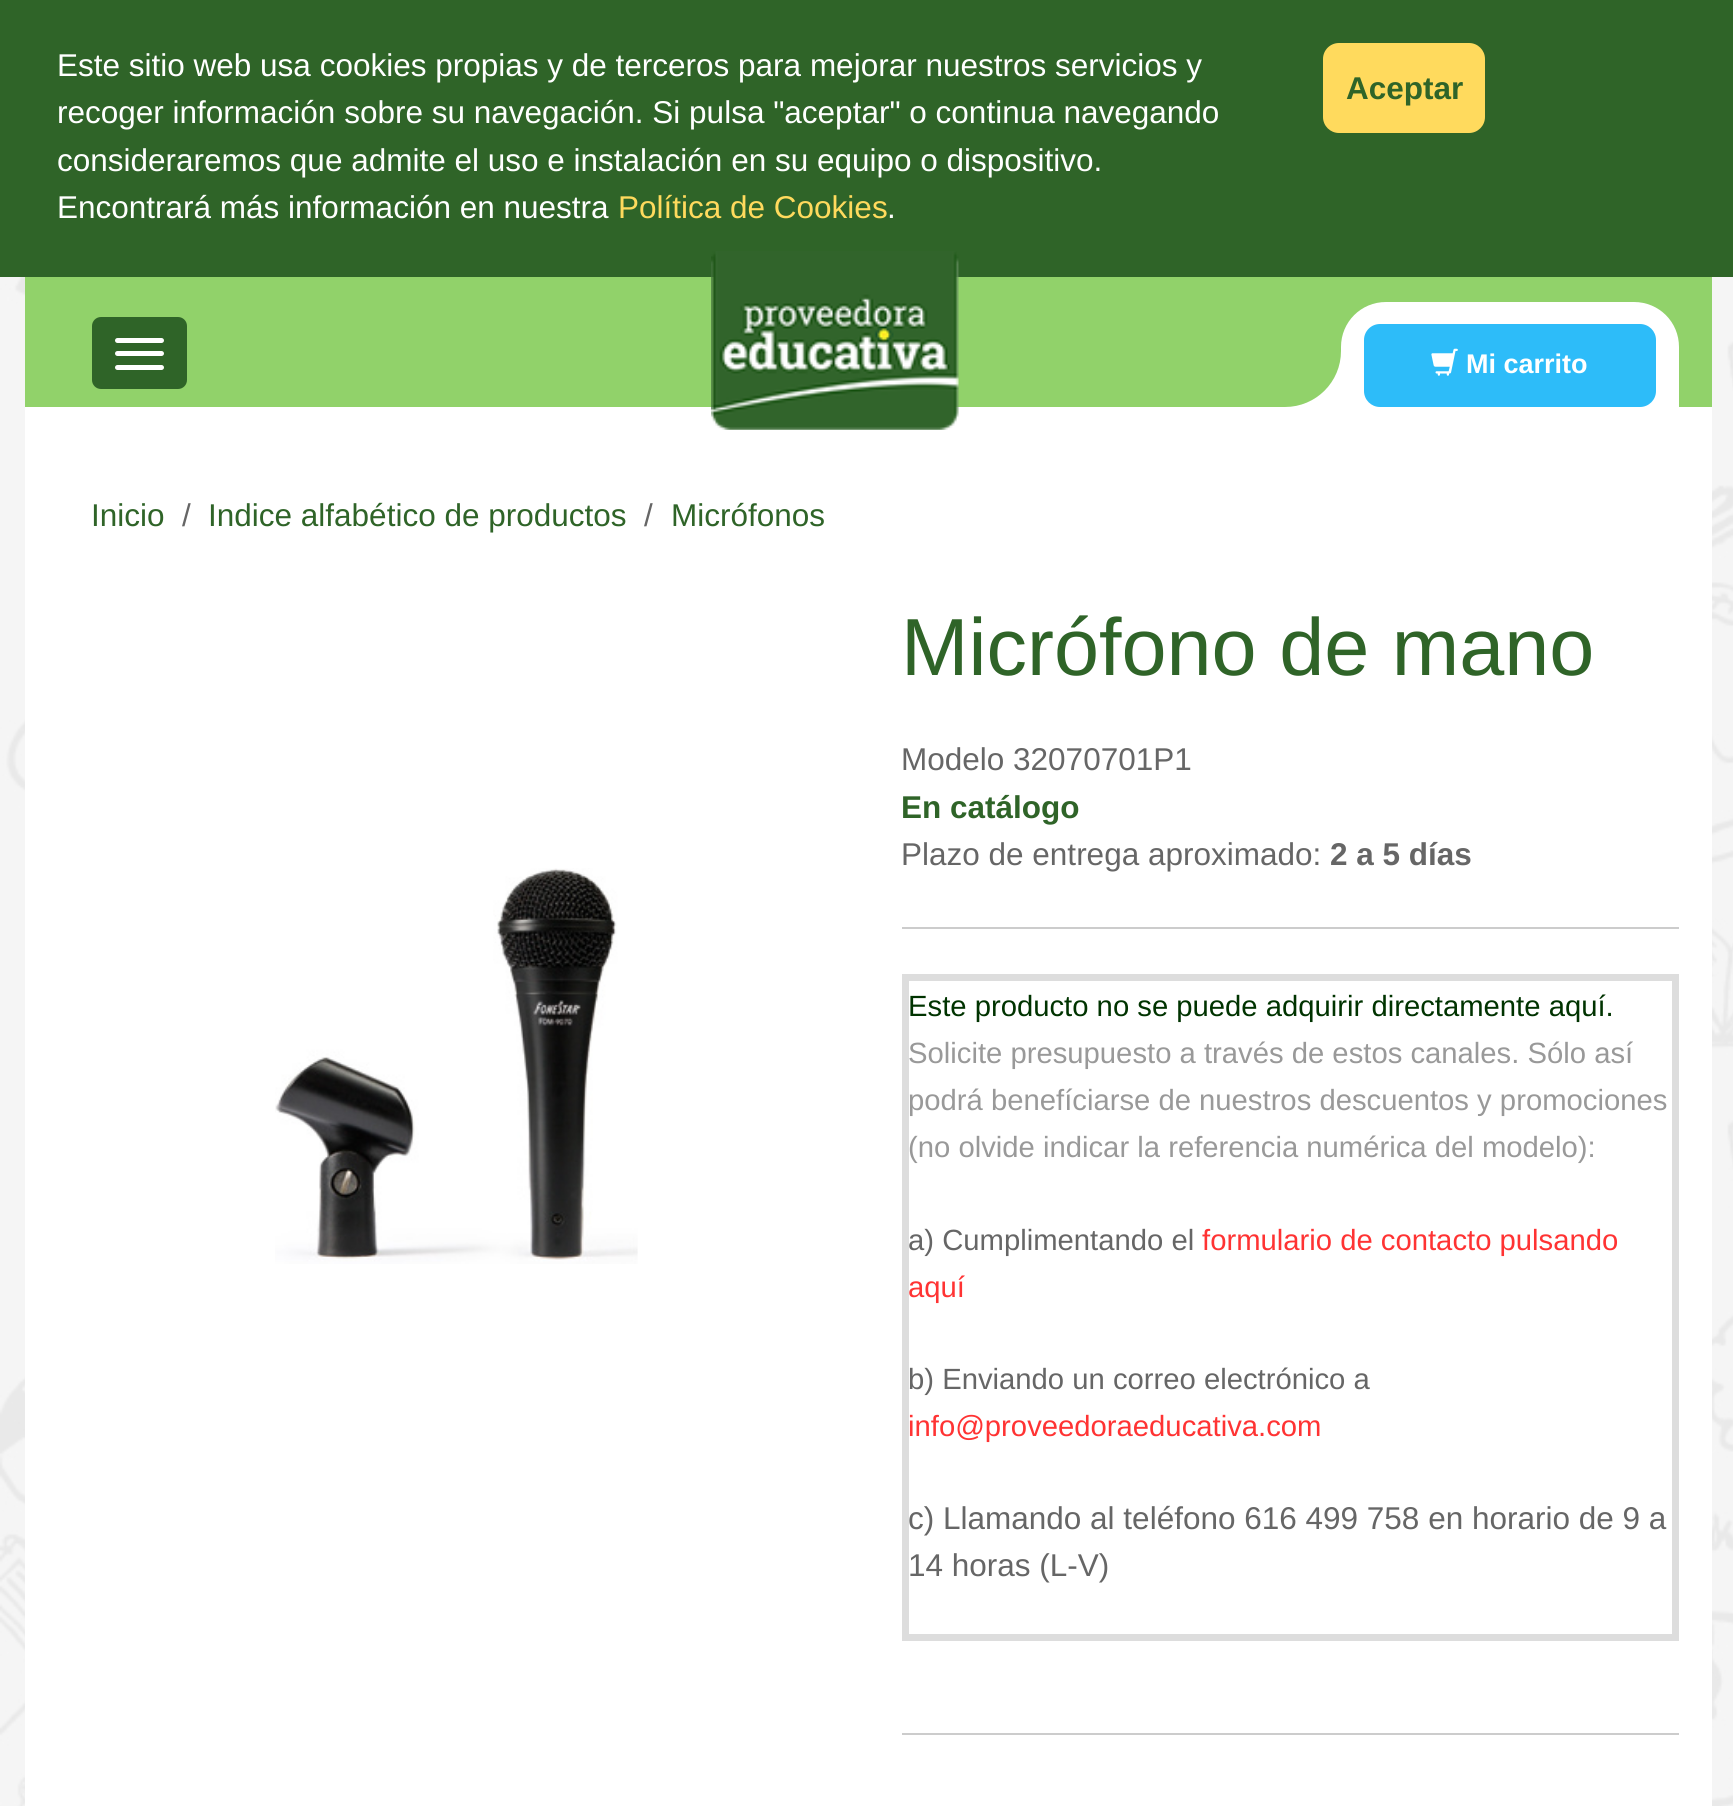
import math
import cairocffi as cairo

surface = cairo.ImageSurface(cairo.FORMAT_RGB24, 1733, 1806)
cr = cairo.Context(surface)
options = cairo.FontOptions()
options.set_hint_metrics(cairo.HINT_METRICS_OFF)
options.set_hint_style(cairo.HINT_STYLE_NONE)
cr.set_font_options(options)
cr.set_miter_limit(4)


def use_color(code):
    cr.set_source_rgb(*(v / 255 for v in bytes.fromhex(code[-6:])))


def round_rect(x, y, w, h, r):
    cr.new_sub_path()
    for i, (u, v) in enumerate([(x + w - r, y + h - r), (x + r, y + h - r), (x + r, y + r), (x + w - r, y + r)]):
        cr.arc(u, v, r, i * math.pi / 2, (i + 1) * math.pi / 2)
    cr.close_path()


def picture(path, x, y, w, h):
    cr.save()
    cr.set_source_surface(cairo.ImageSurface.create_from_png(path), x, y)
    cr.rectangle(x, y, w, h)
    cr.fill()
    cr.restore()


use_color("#ffffff")
cr.paint()
picture("img1.png", 0, 277, 1733, 1529)
use_color("#2f6428")
cr.rectangle(0, 0, 1733, 277)
cr.fill()
cr.select_font_face("Liberation Sans")
cr.set_font_size(31.5)
use_color("#ffffff")
cr.move_to(57, 76)
cr.show_text("Este sitio web usa cookies propias y de terceros para mejorar nuestros servicios y")
cr.move_to(57, 123)
cr.show_text("recoger información sobre su navegación. Si pulsa \"aceptar\" o continua navegando")
cr.move_to(57, 171)
cr.show_text("consideraremos que admite el uso e instalación en su equipo o dispositivo.")
cr.move_to(57, 218)
cr.show_text("Encontrará más información en nuestra")
use_color("#ffda5d")
cr.move_to(618, 218)
cr.show_text("Política de Cookies")
use_color("#ffffff")
cr.move_to(887, 218)
cr.show_text(".")
use_color("#ffda5d")
round_rect(1323, 43, 162, 90, 16)
cr.fill()
cr.select_font_face("Liberation Sans", cairo.FONT_SLANT_NORMAL, cairo.FONT_WEIGHT_BOLD)
use_color("#2f6428")
cr.move_to(1346, 99)
cr.show_text("Aceptar")
use_color("#91d26a")
cr.rectangle(25, 277, 1687, 130)
cr.fill()
use_color("#2f6428")
round_rect(92, 317, 95, 72, 9)
cr.fill()
use_color("#ffffff")
round_rect(115, 338, 49, 5, 2.5)
cr.fill()
round_rect(115, 351, 49, 5, 2.5)
cr.fill()
round_rect(115, 365, 49, 5, 2.5)
cr.fill()
cr.rectangle(25, 407, 1687, 1399)
cr.fill()
picture("img2.png", 711, 251, 248, 179)
cr.new_path()
cr.move_to(1386, 302)
cr.line_to(1634, 302)
cr.curve_to(1659, 302, 1679, 322, 1679, 347)
cr.line_to(1679, 407)
cr.line_to(1341, 407)
cr.line_to(1341, 347)
cr.curve_to(1341, 322, 1361, 302, 1386, 302)
cr.close_path()
cr.fill()
cr.rectangle(1285, 351, 56, 56)
cr.fill()
use_color("#91d26a")
cr.arc(1285, 351, 56, 0, 2 * math.pi)
cr.fill()
use_color("#2dbcf9")
round_rect(1364, 324, 292, 83, 16)
cr.fill()
picture("img3.png", 1431, 348, 27, 28)
cr.set_font_size(27)
use_color("#ffffff")
cr.move_to(1466, 373)
cr.show_text("Mi carrito")
cr.select_font_face("Liberation Sans")
cr.set_font_size(31.5)
use_color("#2f6428")
cr.move_to(91, 526)
cr.show_text("Inicio")
use_color("#666666")
cr.move_to(182, 526)
cr.show_text("/")
use_color("#2f6428")
cr.move_to(208, 526)
cr.show_text("Indice alfabético de productos")
use_color("#666666")
cr.move_to(644, 526)
cr.show_text("/")
use_color("#2f6428")
cr.move_to(671, 526)
cr.show_text("Micrófonos")
picture("img4.png", 275, 868, 363, 396)
cr.set_font_size(81)
cr.move_to(901, 675)
cr.show_text("Micrófono de mano")
cr.set_font_size(31.5)
use_color("#666666")
cr.move_to(901, 770)
cr.show_text("Modelo 32070701P1")
cr.select_font_face("Liberation Sans", cairo.FONT_SLANT_NORMAL, cairo.FONT_WEIGHT_BOLD)
use_color("#2f6428")
cr.move_to(901, 818)
cr.show_text("En catálogo")
cr.select_font_face("Liberation Sans")
use_color("#666666")
cr.move_to(901, 865)
cr.show_text("Plazo de entrega aproximado:")
cr.select_font_face("Liberation Sans", cairo.FONT_SLANT_NORMAL, cairo.FONT_WEIGHT_BOLD)
cr.move_to(1330, 865)
cr.show_text("2 a 5 días")
use_color("#cccccc")
cr.rectangle(902, 927, 777, 2)
cr.fill()
use_color("#dddddd")
cr.rectangle(902, 974, 777, 7)
cr.fill()
cr.rectangle(1672, 974, 7, 666)
cr.fill()
cr.rectangle(902, 1634, 777, 7)
cr.fill()
cr.rectangle(902, 974, 7, 666)
cr.fill()
cr.select_font_face("Liberation Sans")
cr.set_font_size(29.25)
use_color("#003300")
cr.move_to(908, 1016)
cr.show_text("Este producto no se puede adquirir directamente aquí.")
use_color("#999999")
cr.move_to(908, 1063)
cr.show_text("Solicite presupuesto a través de estos canales. Sólo así")
cr.move_to(908, 1110)
cr.show_text("podrá benefíciarse de nuestros descuentos y promociones")
cr.move_to(908, 1157)
cr.show_text("(no olvide indicar la referencia numérica del modelo):")
use_color("#666666")
cr.move_to(908, 1250)
cr.show_text("a) Cumplimentando el")
use_color("#ff3333")
cr.move_to(1202, 1250)
cr.show_text("formulario de contacto pulsando")
cr.move_to(908, 1297)
cr.show_text("aquí")
use_color("#666666")
cr.move_to(908, 1389)
cr.show_text("b) Enviando un correo electrónico a")
use_color("#ff3333")
cr.move_to(908, 1436)
cr.show_text("info@proveedoraeducativa.com")
cr.set_font_size(31.5)
use_color("#666666")
cr.move_to(908, 1529)
cr.show_text("c) Llamando al teléfono 616 499 758 en horario de 9 a")
cr.move_to(908, 1576)
cr.show_text("14 horas (L-V)")
use_color("#cccccc")
cr.rectangle(902, 1733, 777, 2)
cr.fill()
surface.write_to_png("result.png")
